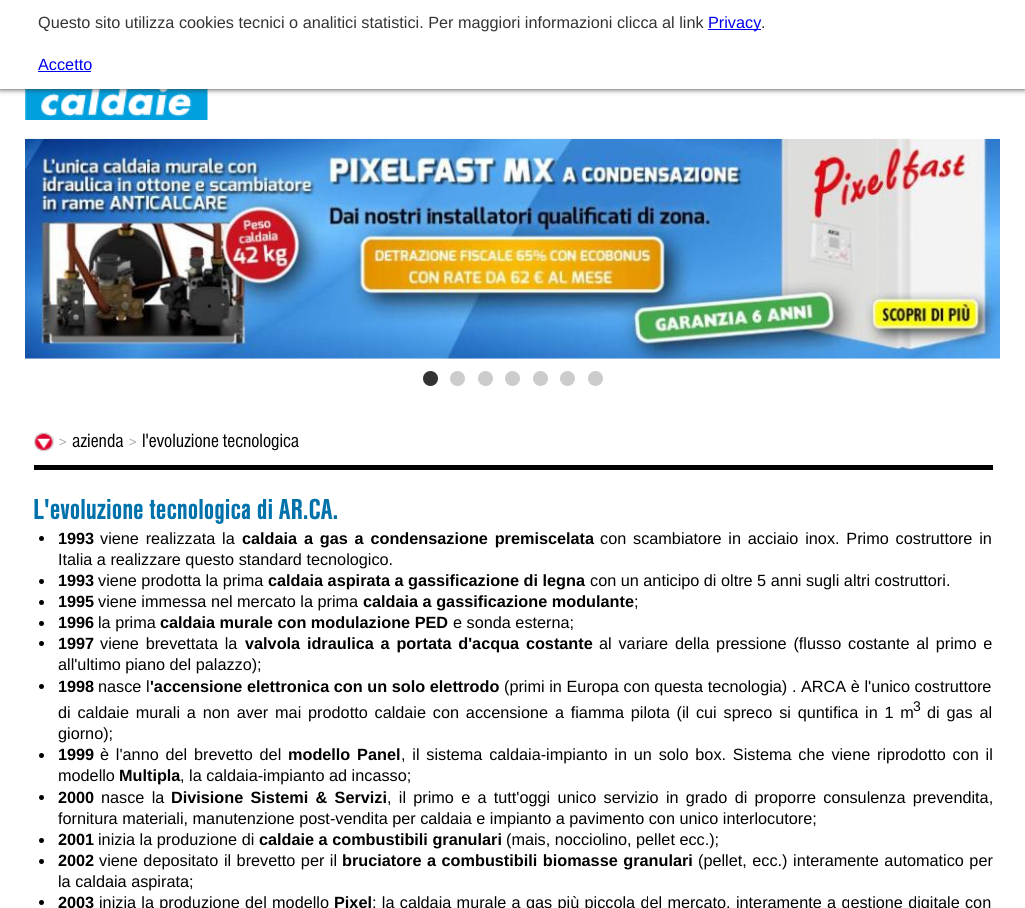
import math
import cairocffi as cairo

surface = cairo.ImageSurface(cairo.FORMAT_RGB24, 1025, 908)
cr = cairo.Context(surface)
options = cairo.FontOptions()
options.set_hint_metrics(cairo.HINT_METRICS_OFF)
options.set_hint_style(cairo.HINT_STYLE_NONE)
cr.set_font_options(options)
cr.set_miter_limit(4)


def use_color(code):
    cr.set_source_rgb(*(v / 255 for v in bytes.fromhex(code[-6:])))


def spaced_text(x, y, s, letter, word):
    cr.move_to(x, y)
    for ch in s:
        cr.show_text(ch)
        cr.rel_move_to(letter + word * (ch == ' '), 0)


def round_rect(x, y, w, h, r):
    cr.new_sub_path()
    for i, (u, v) in enumerate([(x + w - r, y + h - r), (x + r, y + h - r), (x + r, y + r), (x + w - r, y + r)]):
        cr.arc(u, v, r, i * math.pi / 2, (i + 1) * math.pi / 2)
    cr.close_path()


def shadow(x, y, w, h, r, blur, alpha):
    cr.push_group_with_content(cairo.CONTENT_ALPHA)
    cr.set_operator(cairo.OPERATOR_SOURCE)
    for i in range(15, -16, -2):
        e = blur * i / 6
        if min(w, h) + 2 * e > 0:
            cr.set_source_rgba(0, 0, 0, alpha * math.erfc((i - 1) / 8.5) / 2)
            round_rect(x - e, y - e, w + 2 * e, h + 2 * e, max(0, min(r + e + blur * .6, min(w, h) / 2 + e)))
            cr.fill()
    cr.mask(cr.pop_group())


def picture(path, x, y, w, h):
    cr.save()
    cr.set_source_surface(cairo.ImageSurface.create_from_png(path), x, y)
    cr.rectangle(x, y, w, h)
    cr.fill()
    cr.restore()


use_color("#ffffff")
cr.paint()
picture("img1.png", 25, 89, 183, 31)
use_color("#333333")
shadow(0, 0, 1025, 89, 0, 3, 1)
use_color("#ffffff")
cr.rectangle(0, 0, 1025, 89)
cr.fill()
cr.select_font_face("Liberation Sans")
cr.set_font_size(16.25)
use_color("#333333")
cr.move_to(38, 28)
cr.show_text("Questo sito utilizza cookies tecnici o analitici statistici. Per maggiori informazioni clicca al link")
use_color("#0000ee")
cr.rectangle(708, 29, 53, 1)
cr.fill()
cr.move_to(708, 28)
cr.show_text("Privacy")
use_color("#333333")
cr.move_to(761, 28)
cr.show_text(".")
use_color("#0000ee")
cr.move_to(38, 70)
cr.show_text("Accetto")
cr.rectangle(38, 71, 53, 1)
cr.fill()
picture("img2.png", 25, 138, 975, 221)
use_color("#333333")
cr.arc(430.5, 378.5, 7.5, 0, 2 * math.pi)
cr.fill()
use_color("#cccccc")
cr.arc(457.5, 378.5, 7.5, 0, 2 * math.pi)
cr.fill()
cr.arc(485.5, 378.5, 7.5, 0, 2 * math.pi)
cr.fill()
cr.arc(512.5, 378.5, 7.5, 0, 2 * math.pi)
cr.fill()
cr.arc(540.5, 378.5, 7.5, 0, 2 * math.pi)
cr.fill()
cr.arc(567.5, 378.5, 7.5, 0, 2 * math.pi)
cr.fill()
cr.arc(595.5, 378.5, 7.5, 0, 2 * math.pi)
cr.fill()
use_color("#000000")
cr.rectangle(34, 465, 959, 5)
cr.fill()
picture("img3.png", 34, 432, 20, 20)
cr.select_font_face("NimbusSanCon")
cr.set_font_size(15)
use_color("#a8a8a8")
cr.move_to(59, 447)
cr.show_text(">")
cr.set_font_size(20)
use_color("#000000")
cr.move_to(72, 447)
cr.show_text("azienda")
cr.set_font_size(15)
use_color("#a8a8a8")
cr.move_to(129, 447)
cr.show_text(">")
cr.set_font_size(20)
use_color("#000000")
cr.move_to(142, 447)
cr.show_text("l'evoluzione tecnologica")
cr.select_font_face("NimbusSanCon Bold", cairo.FONT_SLANT_NORMAL, cairo.FONT_WEIGHT_BOLD)
cr.set_font_size(30)
use_color("#0072ab")
cr.move_to(33, 519)
cr.show_text("L'evoluzione tecnologica di AR.CA.")
use_color("#000000")
cr.new_path()
cr.arc(41.5, 538.5, 2.5, 0, 2 * math.pi)
cr.fill()
cr.select_font_face("Liberation Sans", cairo.FONT_SLANT_NORMAL, cairo.FONT_WEIGHT_BOLD)
cr.set_font_size(16.25)
cr.move_to(58, 544)
cr.show_text("1993")
cr.select_font_face("Liberation Sans")
spaced_text(100, 544, "viene realizzata la", 0, 2.3)
cr.select_font_face("Liberation Sans", cairo.FONT_SLANT_NORMAL, cairo.FONT_WEIGHT_BOLD)
spaced_text(242, 544, "caldaia a gas a condensazione premiscelata", 0, 2.3)
cr.select_font_face("Liberation Sans")
spaced_text(600, 544, "con scambiatore in acciaio inox. Primo costruttore in", 0, 2.3)
cr.move_to(58, 565)
cr.show_text("Italia a realizzare questo standard tecnologico.")
cr.new_path()
cr.arc(41.5, 581.5, 2.5, 0, 2 * math.pi)
cr.fill()
cr.select_font_face("Liberation Sans", cairo.FONT_SLANT_NORMAL, cairo.FONT_WEIGHT_BOLD)
cr.move_to(58, 586)
cr.show_text("1993")
cr.select_font_face("Liberation Sans")
cr.move_to(98, 586)
cr.show_text("viene prodotta la prima")
cr.select_font_face("Liberation Sans", cairo.FONT_SLANT_NORMAL, cairo.FONT_WEIGHT_BOLD)
cr.move_to(268, 586)
cr.show_text("caldaia aspirata a gassificazione di legna")
cr.select_font_face("Liberation Sans")
cr.move_to(590, 586)
cr.show_text("con un anticipo di oltre 5 anni sugli altri costruttori.")
cr.new_path()
cr.arc(41.5, 602.5, 2.5, 0, 2 * math.pi)
cr.fill()
cr.select_font_face("Liberation Sans", cairo.FONT_SLANT_NORMAL, cairo.FONT_WEIGHT_BOLD)
cr.move_to(58, 607)
cr.show_text("1995")
cr.select_font_face("Liberation Sans")
cr.move_to(98, 607)
cr.show_text("viene immessa nel mercato la prima")
cr.select_font_face("Liberation Sans", cairo.FONT_SLANT_NORMAL, cairo.FONT_WEIGHT_BOLD)
cr.move_to(363, 607)
cr.show_text("caldaia a gassificazione modulante")
cr.select_font_face("Liberation Sans")
cr.move_to(634, 607)
cr.show_text(";")
cr.new_path()
cr.arc(41.5, 623.5, 2.5, 0, 2 * math.pi)
cr.fill()
cr.select_font_face("Liberation Sans", cairo.FONT_SLANT_NORMAL, cairo.FONT_WEIGHT_BOLD)
cr.move_to(58, 628)
cr.show_text("1996")
cr.select_font_face("Liberation Sans")
cr.move_to(98, 628)
cr.show_text("la prima")
cr.select_font_face("Liberation Sans", cairo.FONT_SLANT_NORMAL, cairo.FONT_WEIGHT_BOLD)
cr.move_to(160, 628)
cr.show_text("caldaia murale con modulazione PED")
cr.select_font_face("Liberation Sans")
cr.move_to(453, 628)
cr.show_text("e sonda esterna;")
cr.new_path()
cr.arc(41.5, 643.5, 2.5, 0, 2 * math.pi)
cr.fill()
cr.select_font_face("Liberation Sans", cairo.FONT_SLANT_NORMAL, cairo.FONT_WEIGHT_BOLD)
cr.move_to(58, 649)
cr.show_text("1997")
cr.select_font_face("Liberation Sans")
spaced_text(100, 649, "viene brevettata la", 0, 2.3)
cr.select_font_face("Liberation Sans", cairo.FONT_SLANT_NORMAL, cairo.FONT_WEIGHT_BOLD)
spaced_text(245, 649, "valvola idraulica a portata d'acqua costante", 0, 2.3)
cr.select_font_face("Liberation Sans")
spaced_text(599, 649, "al variare della pressione (flusso costante al primo e", 0, 2.3)
cr.move_to(58, 670)
cr.show_text("all'ultimo piano del palazzo);")
cr.new_path()
cr.arc(41.5, 686.5, 2.5, 0, 2 * math.pi)
cr.fill()
cr.select_font_face("Liberation Sans", cairo.FONT_SLANT_NORMAL, cairo.FONT_WEIGHT_BOLD)
cr.move_to(58, 692)
cr.show_text("1998")
cr.select_font_face("Liberation Sans")
cr.move_to(98, 692)
cr.show_text("nasce l")
cr.select_font_face("Liberation Sans", cairo.FONT_SLANT_NORMAL, cairo.FONT_WEIGHT_BOLD)
spaced_text(150, 692, "'accensione elettronica con un solo elettrodo", 0, 0.1)
cr.select_font_face("Liberation Sans")
spaced_text(504, 692, "(primi in Europa con questa tecnologia) . ARCA è l'unico costruttore", 0, 0.1)
spaced_text(58, 718, "di caldaie murali a non aver mai prodotto caldaie con accensione a fiamma pilota (il cui spreco si quntifica in 1 m", 0, 2.3)
cr.set_font_size(14)
cr.move_to(913, 711)
cr.show_text("3")
cr.set_font_size(16.25)
spaced_text(927, 718, "di gas al", 0, 2.3)
cr.move_to(58, 739)
cr.show_text("giorno);")
cr.new_path()
cr.arc(41.5, 755.5, 2.5, 0, 2 * math.pi)
cr.fill()
cr.select_font_face("Liberation Sans", cairo.FONT_SLANT_NORMAL, cairo.FONT_WEIGHT_BOLD)
cr.move_to(58, 760)
cr.show_text("1999")
cr.select_font_face("Liberation Sans")
spaced_text(100, 760, "è l'anno del brevetto del", 0, 2.3)
cr.select_font_face("Liberation Sans", cairo.FONT_SLANT_NORMAL, cairo.FONT_WEIGHT_BOLD)
spaced_text(288, 760, "modello Panel", 0, 2.3)
cr.select_font_face("Liberation Sans")
spaced_text(401, 760, ", il sistema caldaia-impianto in un solo box. Sistema che viene riprodotto con il", 0, 2.3)
cr.move_to(58, 781)
cr.show_text("modello")
cr.select_font_face("Liberation Sans", cairo.FONT_SLANT_NORMAL, cairo.FONT_WEIGHT_BOLD)
cr.move_to(119, 781)
cr.show_text("Multipla")
cr.select_font_face("Liberation Sans")
cr.move_to(180, 781)
cr.show_text(", la caldaia-impianto ad incasso;")
cr.new_path()
cr.arc(41.5, 797.5, 2.5, 0, 2 * math.pi)
cr.fill()
cr.select_font_face("Liberation Sans", cairo.FONT_SLANT_NORMAL, cairo.FONT_WEIGHT_BOLD)
cr.move_to(58, 803)
cr.show_text("2000")
cr.select_font_face("Liberation Sans")
spaced_text(101, 803, "nasce la", 0, 2.75)
cr.select_font_face("Liberation Sans", cairo.FONT_SLANT_NORMAL, cairo.FONT_WEIGHT_BOLD)
spaced_text(171, 803, "Divisione Sistemi & Servizi", 0, 2.75)
cr.select_font_face("Liberation Sans")
spaced_text(387, 803, ", il primo e a tutt'oggi unico servizio in grado di proporre consulenza prevendita,", 0, 2.75)
cr.move_to(58, 824)
cr.show_text("fornitura materiali, manutenzione post-vendita per caldaia e impianto a pavimento con unico interlocutore;")
cr.new_path()
cr.arc(41.5, 840.5, 2.5, 0, 2 * math.pi)
cr.fill()
cr.select_font_face("Liberation Sans", cairo.FONT_SLANT_NORMAL, cairo.FONT_WEIGHT_BOLD)
cr.move_to(58, 845)
cr.show_text("2001")
cr.select_font_face("Liberation Sans")
cr.move_to(98, 845)
cr.show_text("inizia la produzione di")
cr.select_font_face("Liberation Sans", cairo.FONT_SLANT_NORMAL, cairo.FONT_WEIGHT_BOLD)
cr.move_to(259, 845)
cr.show_text("caldaie a combustibili granulari")
cr.select_font_face("Liberation Sans")
cr.move_to(506, 845)
cr.show_text("(mais, nocciolino, pellet ecc.);")
cr.new_path()
cr.arc(41.5, 861.5, 2.5, 0, 2 * math.pi)
cr.fill()
cr.select_font_face("Liberation Sans", cairo.FONT_SLANT_NORMAL, cairo.FONT_WEIGHT_BOLD)
cr.move_to(58, 866)
cr.show_text("2002")
cr.select_font_face("Liberation Sans")
spaced_text(99, 866, "viene depositato il brevetto per il", 0, 1)
cr.select_font_face("Liberation Sans", cairo.FONT_SLANT_NORMAL, cairo.FONT_WEIGHT_BOLD)
spaced_text(342, 866, "bruciatore a combustibili biomasse granulari", 0, 1)
cr.select_font_face("Liberation Sans")
spaced_text(698, 866, "(pellet, ecc.) interamente automatico per", 0, 1)
cr.move_to(58, 887)
cr.show_text("la caldaia aspirata;")
cr.new_path()
cr.arc(41.5, 902.5, 2.5, 0, 2 * math.pi)
cr.fill()
cr.select_font_face("Liberation Sans", cairo.FONT_SLANT_NORMAL, cairo.FONT_WEIGHT_BOLD)
cr.move_to(58, 908)
cr.show_text("2003")
cr.select_font_face("Liberation Sans")
spaced_text(99, 908, "inizia la produzione del modello", 0, 0.8)
cr.select_font_face("Liberation Sans", cairo.FONT_SLANT_NORMAL, cairo.FONT_WEIGHT_BOLD)
cr.move_to(334, 908)
cr.show_text("Pixel")
cr.select_font_face("Liberation Sans")
spaced_text(372, 908, "; la caldaia murale a gas più piccola del mercato, interamente a gestione digitale con", 0, 0.8)
surface.write_to_png("result.png")
